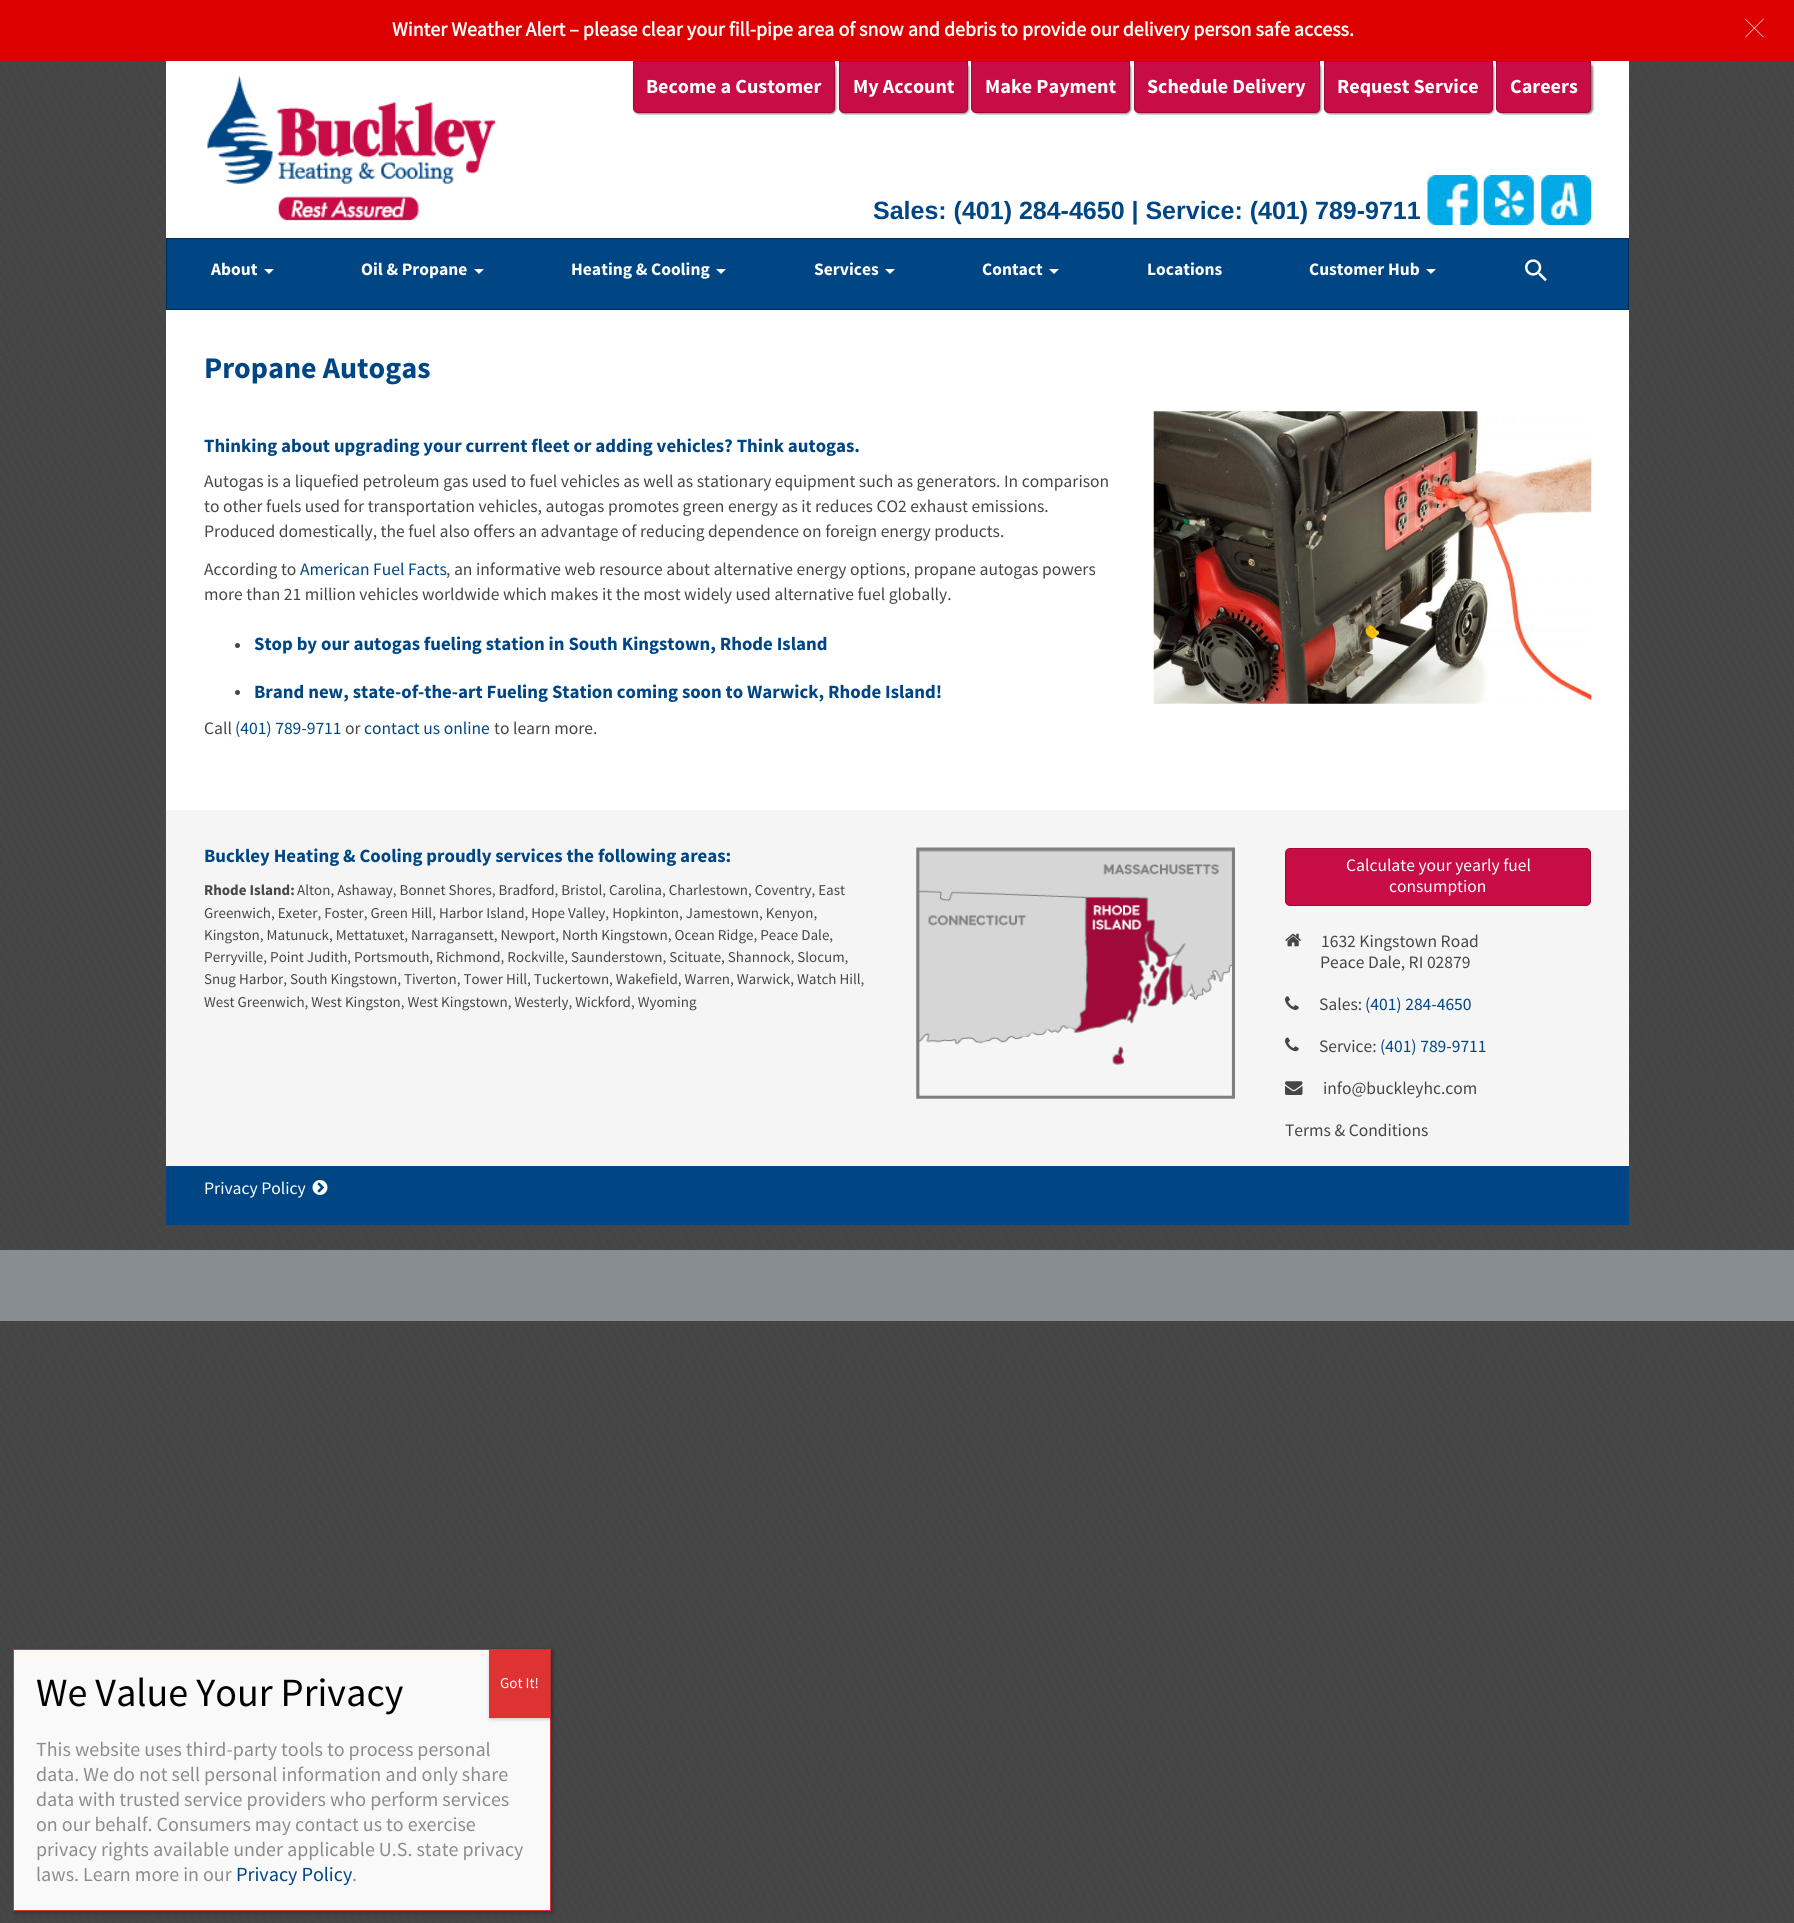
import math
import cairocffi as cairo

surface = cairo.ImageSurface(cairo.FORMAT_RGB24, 1794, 1923)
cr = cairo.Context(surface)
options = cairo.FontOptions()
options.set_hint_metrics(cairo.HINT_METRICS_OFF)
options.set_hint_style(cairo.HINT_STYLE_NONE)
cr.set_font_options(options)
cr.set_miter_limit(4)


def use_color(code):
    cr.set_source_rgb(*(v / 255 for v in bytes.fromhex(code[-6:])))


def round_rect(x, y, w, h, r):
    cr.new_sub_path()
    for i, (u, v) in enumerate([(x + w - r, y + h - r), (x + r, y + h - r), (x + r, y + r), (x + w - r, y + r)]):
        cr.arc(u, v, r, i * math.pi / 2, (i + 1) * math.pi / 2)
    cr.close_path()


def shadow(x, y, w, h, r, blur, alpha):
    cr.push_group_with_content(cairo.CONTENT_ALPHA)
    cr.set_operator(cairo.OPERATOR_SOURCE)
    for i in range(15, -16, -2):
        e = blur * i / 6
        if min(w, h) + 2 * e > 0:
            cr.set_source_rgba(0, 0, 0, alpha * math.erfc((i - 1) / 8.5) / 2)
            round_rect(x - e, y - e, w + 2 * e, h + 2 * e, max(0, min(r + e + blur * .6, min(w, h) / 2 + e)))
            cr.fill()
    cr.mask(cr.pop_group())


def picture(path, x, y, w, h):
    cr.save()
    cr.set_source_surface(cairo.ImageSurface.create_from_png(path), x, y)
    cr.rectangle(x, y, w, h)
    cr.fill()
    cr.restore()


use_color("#ffffff")
cr.paint()
picture("img1.png", 0, 61, 1794, 1862)
use_color("#ffffff")
cr.rectangle(166, 61, 1463, 749)
cr.fill()
use_color("#000000")
shadow(634, 63, 202, 51, 5, 1, 0.5)
shadow(840, 63, 129, 51, 5, 1, 0.5)
shadow(973, 63, 158, 51, 5, 1, 0.5)
shadow(1135, 63, 186, 51, 5, 1, 0.5)
shadow(1325, 63, 169, 51, 5, 1, 0.5)
shadow(1498, 63, 95, 51, 5, 1, 0.5)
use_color("#dd0000")
cr.rectangle(0, 0, 1794, 61)
cr.fill()
cr.select_font_face("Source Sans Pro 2", cairo.FONT_SLANT_NORMAL, cairo.FONT_WEIGHT_BOLD)
cr.set_font_size(20)
use_color("#ffffff")
cr.move_to(392, 36)
cr.show_text("Winter Weather Alert – please clear your fill-pipe area of snow and debris to provide our delivery person safe access.")
picture("img2.png", 1745, 18, 19, 20)
picture("img3.png", 207, 76, 289, 145)
use_color("#c70c46")
cr.new_path()
cr.move_to(633.5, 61.5)
cr.line_to(834.5, 61.5)
cr.line_to(834.5, 108)
cr.curve_to(834.5, 110.5, 832.5, 112.5, 830, 112.5)
cr.line_to(638, 112.5)
cr.curve_to(635.5, 112.5, 633.5, 110.5, 633.5, 108)
cr.close_path()
cr.fill_preserve()
use_color("#a10a38")
cr.set_line_width(1)
cr.stroke()
cr.select_font_face("Source Sans Pro", cairo.FONT_SLANT_NORMAL, cairo.FONT_WEIGHT_BOLD)
use_color("#ffffff")
cr.move_to(646, 93)
cr.show_text("Become a Customer")
use_color("#c70c46")
cr.new_path()
cr.move_to(839.5, 61.5)
cr.line_to(967.5, 61.5)
cr.line_to(967.5, 108)
cr.curve_to(967.5, 110.5, 965.5, 112.5, 963, 112.5)
cr.line_to(844, 112.5)
cr.curve_to(841.5, 112.5, 839.5, 110.5, 839.5, 108)
cr.close_path()
cr.fill_preserve()
use_color("#a10a38")
cr.stroke()
use_color("#ffffff")
cr.move_to(853, 93)
cr.show_text("My Account")
use_color("#c70c46")
cr.new_path()
cr.move_to(971.5, 61.5)
cr.line_to(1129.5, 61.5)
cr.line_to(1129.5, 108)
cr.curve_to(1129.5, 110.5, 1127.5, 112.5, 1125, 112.5)
cr.line_to(976, 112.5)
cr.curve_to(973.5, 112.5, 971.5, 110.5, 971.5, 108)
cr.close_path()
cr.fill_preserve()
use_color("#a10a38")
cr.stroke()
use_color("#ffffff")
cr.move_to(985, 93)
cr.show_text("Make Payment")
use_color("#c70c46")
cr.new_path()
cr.move_to(1134.5, 61.5)
cr.line_to(1319.5, 61.5)
cr.line_to(1319.5, 108)
cr.curve_to(1319.5, 110.5, 1317.5, 112.5, 1315, 112.5)
cr.line_to(1139, 112.5)
cr.curve_to(1136.5, 112.5, 1134.5, 110.5, 1134.5, 108)
cr.close_path()
cr.fill_preserve()
use_color("#a10a38")
cr.stroke()
use_color("#ffffff")
cr.move_to(1147, 93)
cr.show_text("Schedule Delivery")
use_color("#c70c46")
cr.new_path()
cr.move_to(1324.5, 61.5)
cr.line_to(1492.5, 61.5)
cr.line_to(1492.5, 108)
cr.curve_to(1492.5, 110.5, 1490.5, 112.5, 1488, 112.5)
cr.line_to(1329, 112.5)
cr.curve_to(1326.5, 112.5, 1324.5, 110.5, 1324.5, 108)
cr.close_path()
cr.fill_preserve()
use_color("#a10a38")
cr.stroke()
use_color("#ffffff")
cr.move_to(1337, 93)
cr.show_text("Request Service")
use_color("#c70c46")
cr.new_path()
cr.move_to(1496.5, 61.5)
cr.line_to(1590.5, 61.5)
cr.line_to(1590.5, 108)
cr.curve_to(1590.5, 110.5, 1588.5, 112.5, 1586, 112.5)
cr.line_to(1501, 112.5)
cr.curve_to(1498.5, 112.5, 1496.5, 110.5, 1496.5, 108)
cr.close_path()
cr.fill_preserve()
use_color("#a10a38")
cr.stroke()
use_color("#ffffff")
cr.move_to(1510, 93)
cr.show_text("Careers")
cr.select_font_face("Liberation Sans", cairo.FONT_SLANT_NORMAL, cairo.FONT_WEIGHT_BOLD)
cr.set_font_size(25)
use_color("#004684")
cr.move_to(873, 219)
cr.show_text("Sales: (401) 284-4650 | Service: (401) 789-9711")
picture("img4.png", 1427, 175, 51, 50)
picture("img5.png", 1483, 175, 51, 50)
picture("img6.png", 1541, 175, 51, 50)
cr.rectangle(166.5, 238.5, 1462, 71)
cr.fill_preserve()
use_color("#002d55")
cr.stroke()
cr.select_font_face("Source Sans Pro", cairo.FONT_SLANT_NORMAL, cairo.FONT_WEIGHT_BOLD)
cr.set_font_size(17.5)
use_color("#ffffff")
cr.move_to(211, 275)
cr.show_text("About")
cr.new_path()
cr.move_to(264, 269)
cr.line_to(274, 269)
cr.line_to(269, 274)
cr.close_path()
cr.fill()
cr.move_to(361, 275)
cr.show_text("Oil & Propane")
cr.new_path()
cr.move_to(474, 269)
cr.line_to(484, 269)
cr.line_to(479, 274)
cr.close_path()
cr.fill()
cr.move_to(571, 275)
cr.show_text("Heating & Cooling")
cr.new_path()
cr.move_to(716, 269)
cr.line_to(726, 269)
cr.line_to(721, 274)
cr.close_path()
cr.fill()
cr.move_to(814, 275)
cr.show_text("Services")
cr.new_path()
cr.move_to(885, 269)
cr.line_to(895, 269)
cr.line_to(890, 274)
cr.close_path()
cr.fill()
cr.move_to(982, 275)
cr.show_text("Contact")
cr.new_path()
cr.move_to(1049, 269)
cr.line_to(1059, 269)
cr.line_to(1054, 274)
cr.close_path()
cr.fill()
cr.move_to(1147, 275)
cr.show_text("Locations")
cr.move_to(1309, 275)
cr.show_text("Customer Hub")
cr.new_path()
cr.move_to(1426, 269)
cr.line_to(1436, 269)
cr.line_to(1431, 274)
cr.close_path()
cr.fill()
picture("img7.png", 1525, 259, 22, 23)
cr.set_font_size(30)
use_color("#004684")
cr.move_to(204, 378)
cr.show_text("Propane Autogas")
cr.set_font_size(18.75)
cr.move_to(204, 452)
cr.show_text("Thinking about upgrading your current fleet or adding vehicles? Think autogas.")
cr.select_font_face("Source Sans Pro")
cr.set_font_size(17.5)
use_color("#464646")
cr.move_to(204, 487)
cr.show_text("Autogas is a liquefied petroleum gas used to fuel vehicles as well as stationary equipment such as generators. In comparison")
cr.move_to(204, 512)
cr.show_text("to other fuels used for transportation vehicles, autogas promotes green energy as it reduces CO2 exhaust emissions.")
cr.move_to(204, 537)
cr.show_text("Produced domestically, the fuel also offers an advantage of reducing dependence on foreign energy products.")
cr.move_to(204, 575)
cr.show_text("According to")
use_color("#004684")
cr.move_to(300, 575)
cr.show_text("American Fuel Facts")
use_color("#464646")
cr.move_to(446, 575)
cr.show_text(", an informative web resource about alternative energy options, propane autogas powers")
cr.move_to(204, 600)
cr.show_text("more than 21 million vehicles worldwide which makes it the most widely used alternative fuel globally.")
cr.new_path()
cr.arc(237.5, 645.5, 2.5, 0, 2 * math.pi)
cr.fill()
cr.select_font_face("Source Sans Pro", cairo.FONT_SLANT_NORMAL, cairo.FONT_WEIGHT_BOLD)
cr.set_font_size(18.75)
use_color("#004684")
cr.move_to(254, 650)
cr.show_text("Stop by our autogas fueling station in South Kingstown, Rhode Island")
use_color("#464646")
cr.new_path()
cr.arc(237.5, 692.5, 2.5, 0, 2 * math.pi)
cr.fill()
use_color("#004684")
cr.move_to(254, 698)
cr.show_text("Brand new, state-of-the-art Fueling Station coming soon to Warwick, Rhode Island!")
cr.select_font_face("Source Sans Pro")
cr.set_font_size(17.5)
use_color("#464646")
cr.move_to(204, 734)
cr.show_text("Call")
use_color("#004684")
cr.move_to(235, 734)
cr.show_text("(401) 789-9711")
use_color("#464646")
cr.move_to(345, 734)
cr.show_text("or")
use_color("#004684")
cr.move_to(364, 734)
cr.show_text("contact us online")
use_color("#464646")
cr.move_to(494, 734)
cr.show_text("to learn more.")
picture("img8.png", 1153, 411, 439, 293)
use_color("#f5f5f5")
cr.rectangle(166, 810, 1463, 356)
cr.fill()
cr.select_font_face("Source Sans Pro", cairo.FONT_SLANT_NORMAL, cairo.FONT_WEIGHT_BOLD)
cr.set_font_size(18.75)
use_color("#004684")
cr.move_to(204, 862)
cr.show_text("Buckley Heating & Cooling proudly services the following areas:")
cr.set_font_size(15)
use_color("#464646")
cr.move_to(204, 895)
cr.show_text("Rhode Island:")
cr.select_font_face("Source Sans Pro")
cr.move_to(297, 895)
cr.show_text("Alton, Ashaway, Bonnet Shores, Bradford, Bristol, Carolina, Charlestown, Coventry, East")
cr.move_to(204, 918)
cr.show_text("Greenwich, Exeter, Foster, Green Hill, Harbor Island, Hope Valley, Hopkinton, Jamestown, Kenyon,")
cr.move_to(204, 940)
cr.show_text("Kingston, Matunuck, Mettatuxet, Narragansett, Newport, North Kingstown, Ocean Ridge, Peace Dale,")
cr.move_to(204, 962)
cr.show_text("Perryville, Point Judith, Portsmouth, Richmond, Rockville, Saunderstown, Scituate, Shannock, Slocum,")
cr.move_to(204, 984)
cr.show_text("Snug Harbor, South Kingstown, Tiverton, Tower Hill, Tuckertown, Wakefield, Warren, Warwick, Watch Hill,")
cr.move_to(204, 1007)
cr.show_text("West Greenwich, West Kingston, West Kingstown, Westerly, Wickford, Wyoming")
picture("img9.png", 916, 847, 319, 252)
use_color("#c70c46")
round_rect(1285.5, 848.5, 305, 57, 4.5)
cr.fill_preserve()
use_color("#a10a38")
cr.stroke()
cr.set_font_size(17.5)
use_color("#ffffff")
cr.move_to(1346, 871)
cr.show_text("Calculate your yearly fuel")
cr.move_to(1389, 892)
cr.show_text("consumption")
picture("img10.png", 1285, 933, 16, 14)
use_color("#464646")
cr.move_to(1321, 947)
cr.show_text("1632 Kingstown Road")
cr.move_to(1320, 968)
cr.show_text("Peace Dale, RI 02879")
picture("img11.png", 1285, 996, 14, 14)
cr.move_to(1319, 1010)
cr.show_text("Sales:")
use_color("#004684")
cr.move_to(1365, 1010)
cr.show_text("(401) 284-4650")
picture("img12.png", 1285, 1037, 14, 15)
use_color("#464646")
cr.move_to(1319, 1052)
cr.show_text("Service:")
use_color("#004684")
cr.move_to(1380, 1052)
cr.show_text("(401) 789-9711")
picture("img13.png", 1285, 1081, 18, 14)
use_color("#464646")
cr.move_to(1323, 1094)
cr.show_text("info@buckleyhc.com")
cr.move_to(1285, 1136)
cr.show_text("Terms & Conditions")
use_color("#004684")
cr.rectangle(166, 1166, 1463, 59)
cr.fill()
use_color("#ffffff")
cr.move_to(204, 1194)
cr.show_text("Privacy Policy")
picture("img14.png", 312, 1180, 16, 15)
use_color("#888d91")
cr.rectangle(0, 1250, 1794, 71)
cr.fill()
use_color("#020202")
shadow(14, 1650, 539, 263, 0, 2, 0.23)
use_color("#f9f9f9")
cr.rectangle(13.5, 1649.5, 537, 261)
cr.fill_preserve()
use_color("#dd3333")
cr.stroke()
cr.set_font_size(40)
use_color("#000000")
cr.move_to(36, 1706)
cr.show_text("We Value Your Privacy")
use_color("#020202")
shadow(490, 1651, 61, 68, 0, 2, 0.23)
use_color("#dd3333")
cr.rectangle(489, 1650, 61, 68)
cr.fill()
cr.set_font_size(15)
use_color("#ffffff")
cr.move_to(500, 1688)
cr.show_text("Got It!")
cr.set_font_size(20)
use_color("#8c8c8c")
cr.move_to(36, 1756)
cr.show_text("This website uses third-party tools to process personal")
cr.move_to(36, 1781)
cr.show_text("data. We do not sell personal information and only share")
cr.move_to(36, 1806)
cr.show_text("data with trusted service providers who perform services")
cr.move_to(36, 1831)
cr.show_text("on our behalf. Consumers may contact us to exercise")
cr.move_to(36, 1856)
cr.show_text("privacy rights available under applicable U.S. state privacy")
cr.move_to(36, 1881)
cr.show_text("laws. Learn more in our")
use_color("#004684")
cr.move_to(236, 1881)
cr.show_text("Privacy Policy")
use_color("#8c8c8c")
cr.move_to(352, 1881)
cr.show_text(".")
surface.write_to_png("result.png")
